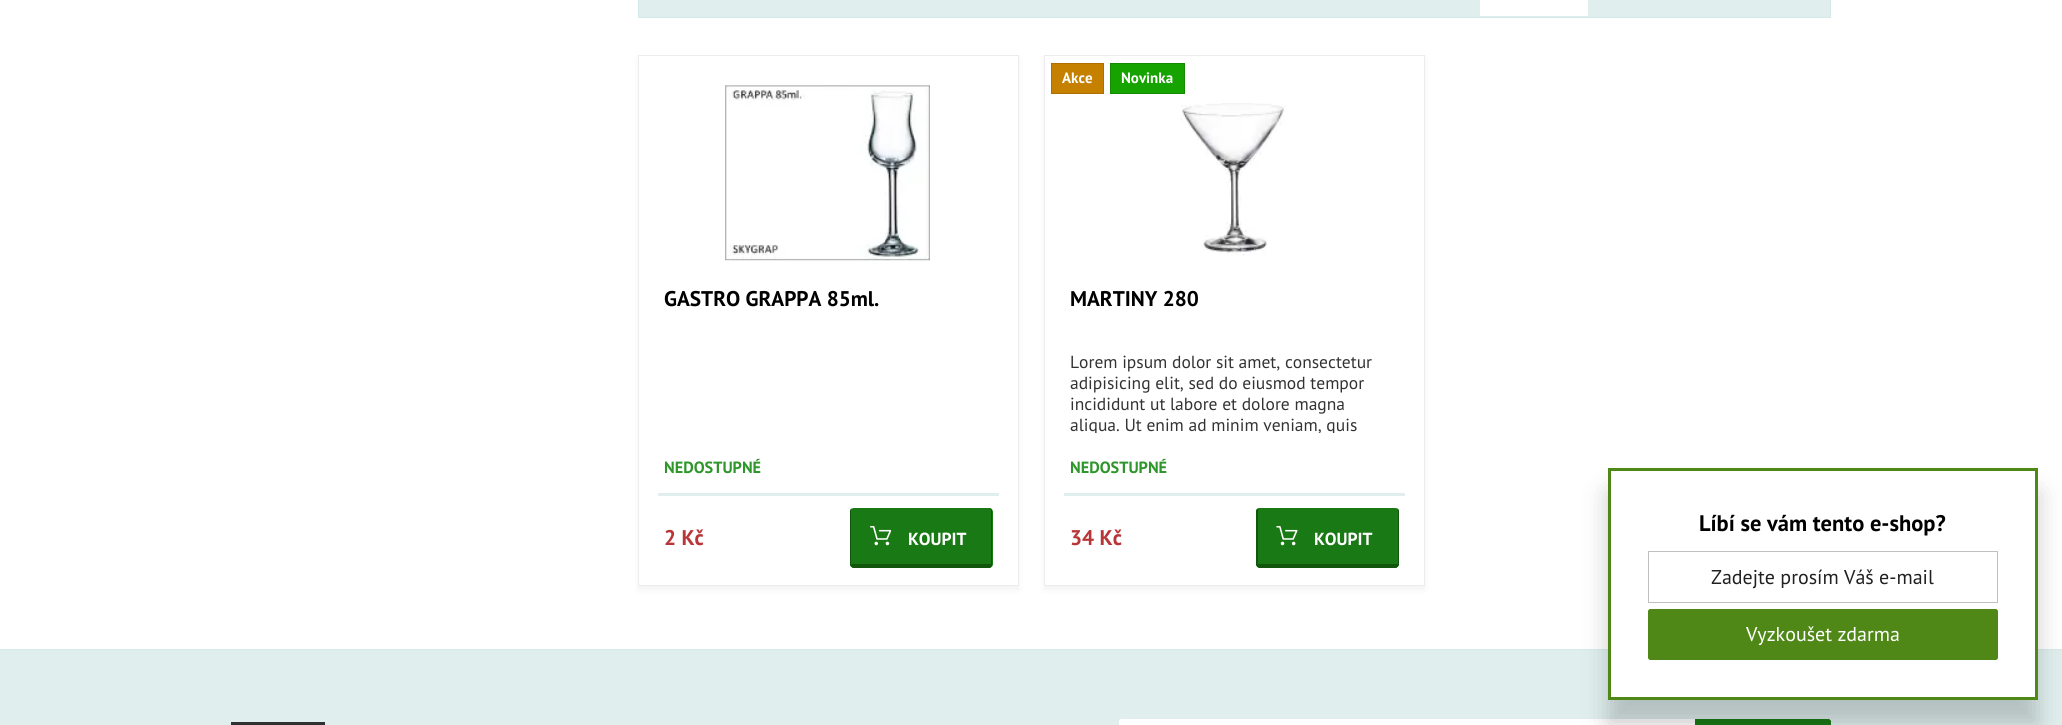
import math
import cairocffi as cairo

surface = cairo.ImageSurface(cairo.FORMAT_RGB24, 2062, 725)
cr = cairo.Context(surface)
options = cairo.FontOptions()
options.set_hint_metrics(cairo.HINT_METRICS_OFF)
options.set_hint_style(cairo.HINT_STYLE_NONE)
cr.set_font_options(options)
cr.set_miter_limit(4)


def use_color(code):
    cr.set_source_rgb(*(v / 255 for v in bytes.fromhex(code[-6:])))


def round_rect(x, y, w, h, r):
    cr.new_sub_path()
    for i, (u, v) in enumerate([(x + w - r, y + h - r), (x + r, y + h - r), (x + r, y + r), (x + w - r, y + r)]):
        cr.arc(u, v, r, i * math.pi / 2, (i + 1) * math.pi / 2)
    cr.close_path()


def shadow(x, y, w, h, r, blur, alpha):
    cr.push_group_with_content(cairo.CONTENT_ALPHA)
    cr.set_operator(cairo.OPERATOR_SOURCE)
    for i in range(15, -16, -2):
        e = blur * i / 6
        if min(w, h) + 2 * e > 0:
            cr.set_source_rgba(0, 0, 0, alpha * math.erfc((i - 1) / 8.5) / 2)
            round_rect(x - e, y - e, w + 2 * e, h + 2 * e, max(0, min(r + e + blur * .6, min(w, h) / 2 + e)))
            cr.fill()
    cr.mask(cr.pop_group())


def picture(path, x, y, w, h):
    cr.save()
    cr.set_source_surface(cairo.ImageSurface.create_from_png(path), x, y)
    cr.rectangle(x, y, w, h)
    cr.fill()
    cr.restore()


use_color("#ffffff")
cr.paint()
use_color("#e0eeee")
cr.rectangle(638.5, -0.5, 1192, 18)
cr.fill_preserve()
use_color("#d6e9e9")
cr.set_line_width(1)
cr.stroke()
use_color("#ffffff")
cr.rectangle(1480, 0, 108, 16)
cr.fill()
use_color("#000000")
shadow(638, 59, 381, 531, 0, 3, 0.05)
use_color("#ffffff")
cr.rectangle(638.5, 55.5, 380, 530)
cr.fill_preserve()
use_color("#ecebf0")
cr.stroke()
picture("img1.png", 725, 85, 205, 176)
cr.select_font_face("PT Sans", cairo.FONT_SLANT_NORMAL, cairo.FONT_WEIGHT_BOLD)
cr.set_font_size(21.25)
use_color("#000000")
cr.move_to(664, 306)
cr.show_text("GASTRO GRAPPA 85ml.")
cr.set_font_size(16.25)
use_color("#2e962b")
cr.move_to(664, 473)
cr.show_text("NEDOSTUPNÉ")
use_color("#e0eeee")
cr.rectangle(658, 493, 341, 3)
cr.fill()
cr.set_font_size(21.25)
use_color("#b83538")
cr.move_to(664, 545)
cr.show_text("2 Kč")
use_color("#197914")
round_rect(850, 508, 143, 60, 4)
cr.fill()
picture("img2.png", 870, 526, 21, 20)
use_color("#12560e")
cr.set_fill_rule(cairo.FILL_RULE_EVEN_ODD)
cr.new_path()
cr.move_to(854, 508)
cr.line_to(989, 508)
cr.curve_to(991, 508, 992, 509, 992, 511)
cr.line_to(992, 564)
cr.curve_to(992, 566, 991, 568, 989, 568)
cr.line_to(854, 568)
cr.curve_to(852, 568, 850, 566, 850, 564)
cr.line_to(850, 511)
cr.curve_to(850, 509, 852, 508, 854, 508)
cr.close_path()
cr.move_to(854, 508)
cr.line_to(989, 508)
cr.curve_to(990, 508, 991, 509, 991, 511)
cr.line_to(991, 564)
cr.line_to(851, 564)
cr.line_to(851, 511)
cr.curve_to(851, 509, 852, 508, 854, 508)
cr.close_path()
cr.fill()
cr.set_font_size(17.5)
use_color("#ffffff")
cr.move_to(908, 545)
cr.show_text("KOUPIT")
cr.save()
cr.new_path()
cr.move_to(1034, 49)
cr.line_to(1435, 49)
cr.line_to(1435, 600)
cr.line_to(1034, 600)
cr.close_path()
cr.move_to(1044, 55)
cr.line_to(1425, 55)
cr.line_to(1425, 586)
cr.line_to(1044, 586)
cr.close_path()
cr.clip()
use_color("#000000")
shadow(1044, 59, 381, 531, 0, 3, 0.05)
cr.restore()
cr.rectangle(1044.5, 55.5, 380, 530)
use_color("#ecebf0")
cr.stroke()
use_color("#c58000")
cr.rectangle(1051.5, 63.5, 52, 30)
cr.fill_preserve()
use_color("#ac6f00")
cr.stroke()
cr.set_font_size(15)
use_color("#ffffff")
cr.move_to(1062, 83)
cr.show_text("Akce")
use_color("#16a300")
cr.rectangle(1110.5, 63.5, 74, 30)
cr.fill_preserve()
use_color("#138a00")
cr.stroke()
use_color("#ffffff")
cr.move_to(1121, 83)
cr.show_text("Novinka")
picture("img3.png", 1181, 103, 105, 153)
cr.set_font_size(21.25)
use_color("#000000")
cr.move_to(1070, 306)
cr.show_text("MARTINY 280")
cr.select_font_face("PT Sans")
cr.set_font_size(17.5)
use_color("#333333")
cr.move_to(1070, 368)
cr.show_text("Lorem ipsum dolor sit amet, consectetur")
cr.move_to(1070, 389)
cr.show_text("adipisicing elit, sed do eiusmod tempor")
cr.move_to(1070, 410)
cr.show_text("incididunt ut labore et dolore magna")
cr.save()
cr.set_fill_rule(cairo.FILL_RULE_WINDING)
cr.rectangle(1045, 346, 379, 87)
cr.clip()
cr.move_to(1070, 431)
cr.show_text("aliqua. Ut enim ad minim veniam, quis")
cr.restore()
cr.select_font_face("PT Sans", cairo.FONT_SLANT_NORMAL, cairo.FONT_WEIGHT_BOLD)
cr.set_font_size(16.25)
use_color("#2e962b")
cr.move_to(1070, 473)
cr.show_text("NEDOSTUPNÉ")
use_color("#e0eeee")
cr.rectangle(1064, 493, 341, 3)
cr.fill()
cr.set_font_size(21.25)
use_color("#b83538")
cr.move_to(1070, 545)
cr.show_text("34 Kč")
use_color("#197914")
round_rect(1256, 508, 143, 60, 4)
cr.fill()
picture("img4.png", 1276, 526, 22, 20)
use_color("#12560e")
cr.new_path()
cr.move_to(1260, 508)
cr.line_to(1395, 508)
cr.curve_to(1397, 508, 1399, 509, 1399, 511)
cr.line_to(1399, 564)
cr.curve_to(1399, 566, 1397, 568, 1395, 568)
cr.line_to(1260, 568)
cr.curve_to(1258, 568, 1256, 566, 1256, 564)
cr.line_to(1256, 511)
cr.curve_to(1256, 509, 1258, 508, 1260, 508)
cr.close_path()
cr.move_to(1260, 508)
cr.line_to(1395, 508)
cr.curve_to(1396, 508, 1398, 509, 1398, 511)
cr.line_to(1398, 564)
cr.line_to(1258, 564)
cr.line_to(1258, 511)
cr.curve_to(1258, 509, 1259, 508, 1260, 508)
cr.close_path()
cr.fill()
cr.set_font_size(17.5)
use_color("#ffffff")
cr.move_to(1314, 545)
cr.show_text("KOUPIT")
use_color("#e0eeee")
cr.rectangle(0, 650, 2062, 75)
cr.fill()
use_color("#d6e9e9")
cr.rectangle(0, 649, 2062, 1)
cr.fill()
use_color("#ffffff")
cr.new_path()
cr.move_to(1121.5, 719.5)
cr.line_to(1830.5, 719.5)
cr.line_to(1830.5, 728.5)
cr.line_to(1121.5, 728.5)
cr.curve_to(1120.5, 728.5, 1119.5, 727.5, 1119.5, 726.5)
cr.line_to(1119.5, 721.5)
cr.curve_to(1119.5, 720.5, 1120.5, 719.5, 1121.5, 719.5)
cr.close_path()
cr.fill_preserve()
cr.stroke()
use_color("#197914")
cr.new_path()
cr.move_to(1695.5, 719.5)
cr.line_to(1828.5, 719.5)
cr.curve_to(1829.5, 719.5, 1830.5, 720.5, 1830.5, 721.5)
cr.line_to(1830.5, 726.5)
cr.curve_to(1830.5, 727.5, 1829.5, 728.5, 1828.5, 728.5)
cr.line_to(1695.5, 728.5)
cr.close_path()
cr.fill_preserve()
cr.stroke()
use_color("#000000")
shadow(1608, 493, 430, 232, 0, 12.5, 0.2)
use_color("#ffffff")
cr.rectangle(1611, 472, 424, 225)
cr.fill()
cr.rectangle(1609.5, 469.5, 427, 229)
use_color("#4f8817")
cr.set_line_width(3)
cr.stroke()
cr.set_font_size(22.5)
use_color("#000000")
cr.move_to(1699, 531)
cr.show_text("Líbí se vám tento e-shop?")
cr.rectangle(1648.5, 551.5, 349, 51)
use_color("#c0c0c0")
cr.set_line_width(1)
cr.stroke()
cr.select_font_face("PT Sans")
cr.set_font_size(20)
use_color("#202020")
cr.move_to(1711, 584)
cr.show_text("Zadejte prosím Váš e-mail")
use_color("#4f8817")
round_rect(1648.5, 609.5, 349, 50, 2)
cr.fill_preserve()
cr.stroke()
use_color("#ffffff")
cr.move_to(1746, 641)
cr.show_text("Vyzkoušet zdarma")
use_color("#303030")
cr.set_fill_rule(cairo.FILL_RULE_WINDING)
cr.new_path()
cr.move_to(231, 722)
cr.line_to(231, 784)
cr.line_to(325, 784)
cr.line_to(325, 722)
cr.close_path()
cr.move_to(278, 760)
cr.line_to(240, 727)
cr.line_to(317, 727)
cr.close_path()
cr.move_to(263, 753)
cr.line_to(236, 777)
cr.line_to(236, 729)
cr.close_path()
cr.move_to(266, 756)
cr.line_to(278, 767)
cr.line_to(290, 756)
cr.line_to(317, 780)
cr.line_to(240, 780)
cr.close_path()
cr.move_to(293, 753)
cr.line_to(320, 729)
cr.line_to(320, 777)
cr.close_path()
cr.fill()
surface.write_to_png("result.png")
